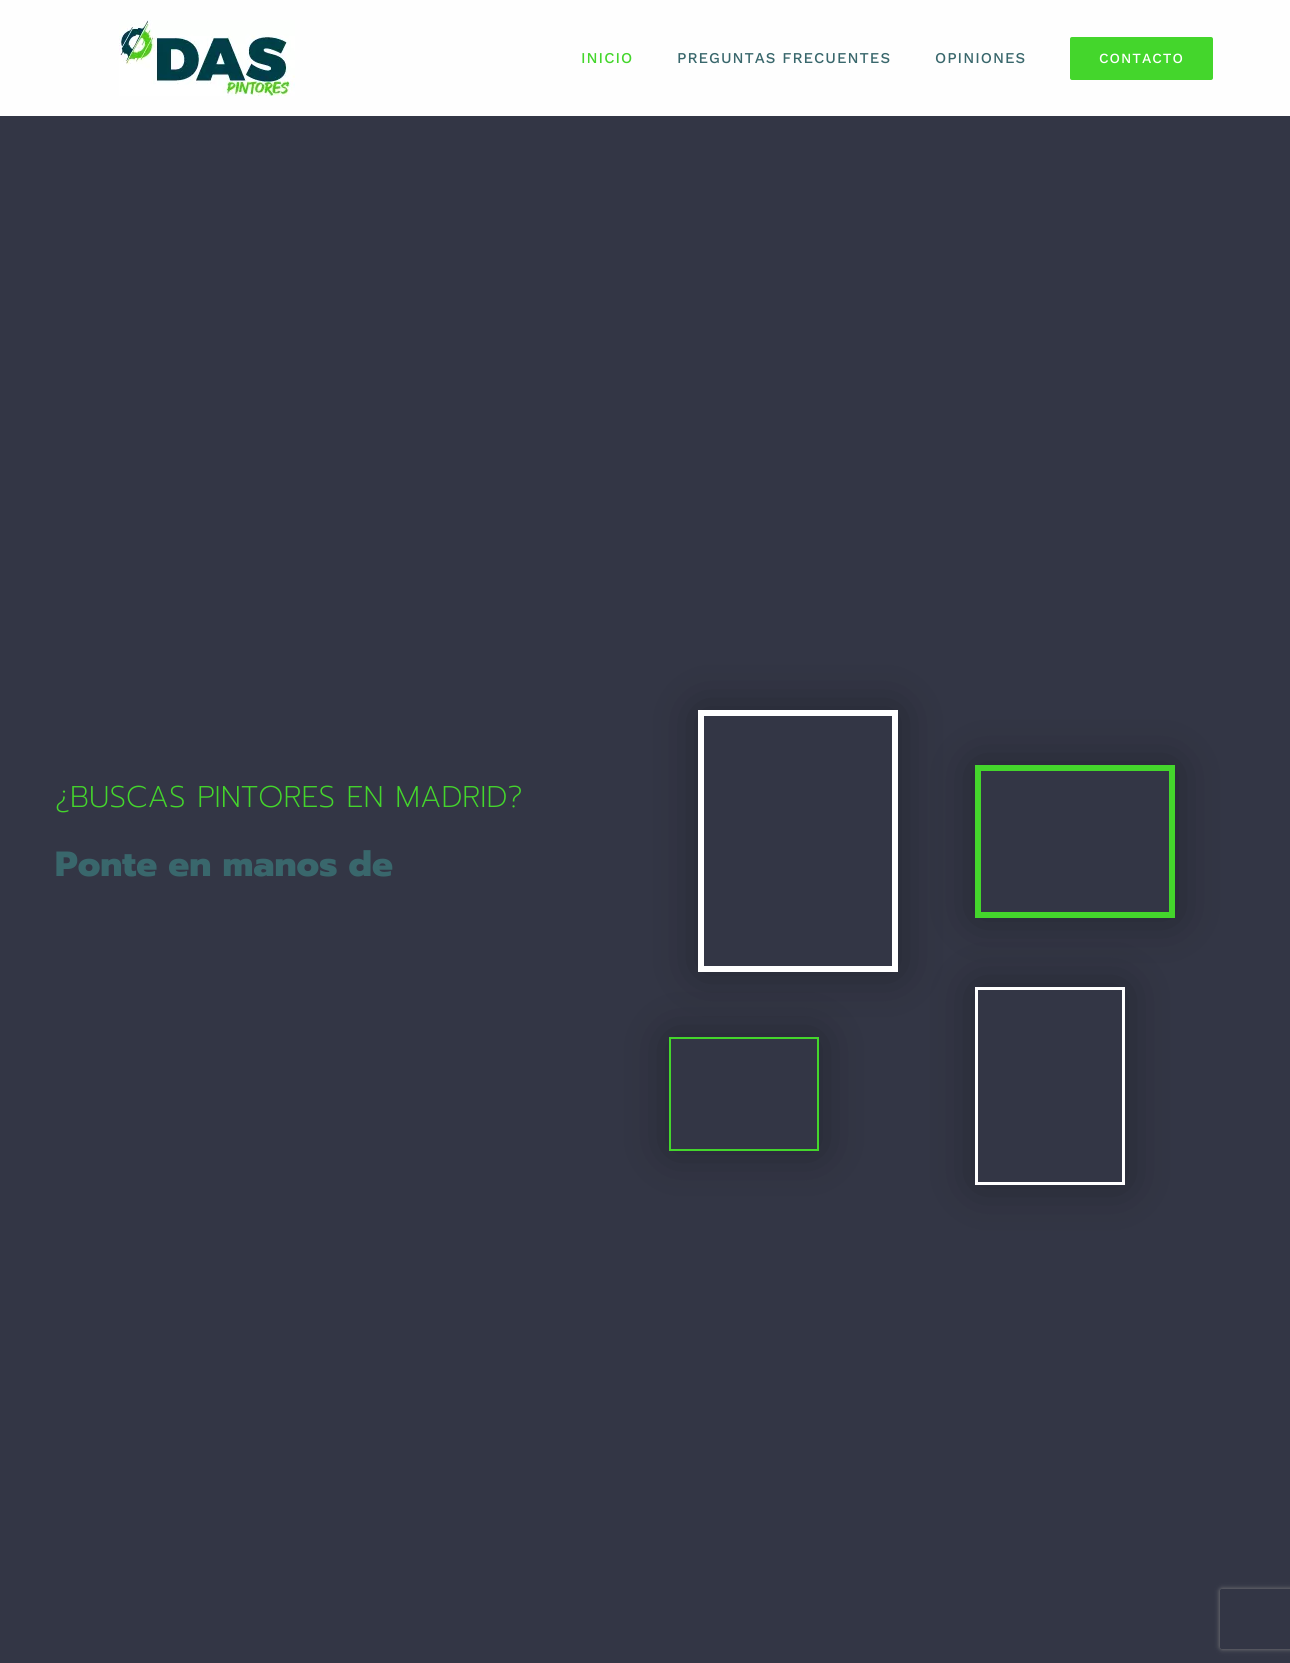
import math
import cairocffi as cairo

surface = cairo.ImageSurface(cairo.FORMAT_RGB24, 1290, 1663)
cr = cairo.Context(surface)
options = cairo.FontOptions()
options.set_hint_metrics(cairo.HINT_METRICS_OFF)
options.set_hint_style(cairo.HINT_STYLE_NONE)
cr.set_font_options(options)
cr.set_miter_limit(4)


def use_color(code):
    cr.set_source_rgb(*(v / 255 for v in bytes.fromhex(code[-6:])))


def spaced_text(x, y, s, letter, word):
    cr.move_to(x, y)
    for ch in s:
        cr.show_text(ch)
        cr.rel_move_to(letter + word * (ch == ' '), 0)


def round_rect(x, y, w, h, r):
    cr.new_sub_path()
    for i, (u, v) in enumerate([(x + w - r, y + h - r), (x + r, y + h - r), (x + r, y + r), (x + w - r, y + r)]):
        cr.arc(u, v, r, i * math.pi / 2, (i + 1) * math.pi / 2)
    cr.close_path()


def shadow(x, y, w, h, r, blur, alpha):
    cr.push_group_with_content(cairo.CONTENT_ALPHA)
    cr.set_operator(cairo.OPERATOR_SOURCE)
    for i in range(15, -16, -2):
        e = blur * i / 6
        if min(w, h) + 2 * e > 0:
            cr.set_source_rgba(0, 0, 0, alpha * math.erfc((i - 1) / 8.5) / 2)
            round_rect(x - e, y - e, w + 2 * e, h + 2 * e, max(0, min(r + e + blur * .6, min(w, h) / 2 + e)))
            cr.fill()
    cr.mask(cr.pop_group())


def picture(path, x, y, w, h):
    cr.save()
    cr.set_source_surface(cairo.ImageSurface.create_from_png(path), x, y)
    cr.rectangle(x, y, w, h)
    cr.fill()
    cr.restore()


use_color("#333645")
cr.paint()
use_color("#fefefe")
cr.rectangle(0, 0, 1290, 116)
cr.fill()
picture("img1.png", 119, 20, 176, 76)
cr.select_font_face("Work Sans Medium")
cr.set_font_size(15)
use_color("#44d62c")
spaced_text(581, 63, "INICIO", 1, 0)
use_color("#39676c")
spaced_text(677, 63, "PREGUNTAS FRECUENTES", 1, 0)
spaced_text(935, 63, "OPINIONES", 1, 0)
use_color("#44d62c")
round_rect(1070, 37, 143, 43, 2)
cr.fill()
cr.set_font_size(14)
use_color("#ffffff")
spaced_text(1099, 63, "CONTACTO", 1, 0)
cr.select_font_face("Prompt ExtraLight")
cr.set_font_size(30)
use_color("#44d62c")
cr.move_to(55, 807)
cr.show_text("¿BUSCAS PINTORES EN MADRID?")
cr.select_font_face("Prompt ExtraBold")
cr.set_font_size(35)
use_color("#39676c")
cr.move_to(55, 876)
cr.show_text("Ponte en manos de")
cr.save()
cr.set_fill_rule(cairo.FILL_RULE_EVEN_ODD)
cr.new_path()
cr.move_to(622, 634)
cr.line_to(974, 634)
cr.line_to(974, 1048)
cr.line_to(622, 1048)
cr.close_path()
cr.move_to(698, 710)
cr.line_to(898, 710)
cr.line_to(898, 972)
cr.line_to(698, 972)
cr.close_path()
cr.clip()
use_color("#000000")
shadow(698, 710, 200, 262, 0, 25, 0.3)
cr.restore()
cr.rectangle(701, 713, 194, 256)
use_color("#ffffff")
cr.set_line_width(6)
cr.stroke()
cr.save()
cr.set_fill_rule(cairo.FILL_RULE_EVEN_ODD)
cr.new_path()
cr.move_to(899, 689)
cr.line_to(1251, 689)
cr.line_to(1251, 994)
cr.line_to(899, 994)
cr.close_path()
cr.move_to(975, 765)
cr.line_to(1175, 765)
cr.line_to(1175, 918)
cr.line_to(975, 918)
cr.close_path()
cr.clip()
use_color("#000000")
shadow(975, 765, 200, 153, 0, 25, 0.3)
cr.restore()
cr.rectangle(978, 768, 194, 147)
use_color("#44d62c")
cr.stroke()
cr.save()
cr.set_fill_rule(cairo.FILL_RULE_EVEN_ODD)
cr.new_path()
cr.move_to(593, 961)
cr.line_to(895, 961)
cr.line_to(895, 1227)
cr.line_to(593, 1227)
cr.close_path()
cr.move_to(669, 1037)
cr.line_to(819, 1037)
cr.line_to(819, 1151)
cr.line_to(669, 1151)
cr.close_path()
cr.clip()
use_color("#000000")
shadow(669, 1037, 150, 114, 0, 25, 0.3)
cr.restore()
cr.rectangle(670, 1038, 148, 112)
cr.set_line_width(2)
cr.stroke()
cr.save()
cr.set_fill_rule(cairo.FILL_RULE_EVEN_ODD)
cr.new_path()
cr.move_to(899, 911)
cr.line_to(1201, 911)
cr.line_to(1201, 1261)
cr.line_to(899, 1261)
cr.close_path()
cr.move_to(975, 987)
cr.line_to(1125, 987)
cr.line_to(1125, 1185)
cr.line_to(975, 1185)
cr.close_path()
cr.clip()
use_color("#000000")
shadow(975, 987, 150, 198, 0, 25, 0.3)
cr.restore()
cr.rectangle(976.5, 988.5, 147, 195)
use_color("#ffffff")
cr.set_line_width(3)
cr.stroke()
cr.save()
cr.set_fill_rule(cairo.FILL_RULE_EVEN_ODD)
cr.new_path()
cr.move_to(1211, 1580)
cr.line_to(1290, 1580)
cr.line_to(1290, 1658)
cr.line_to(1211, 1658)
cr.close_path()
cr.move_to(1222, 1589)
cr.line_to(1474, 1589)
cr.curve_to(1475, 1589, 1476, 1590, 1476, 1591)
cr.line_to(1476, 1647)
cr.curve_to(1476, 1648, 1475, 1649, 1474, 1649)
cr.line_to(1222, 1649)
cr.curve_to(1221, 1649, 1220, 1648, 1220, 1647)
cr.line_to(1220, 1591)
cr.curve_to(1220, 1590, 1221, 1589, 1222, 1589)
cr.close_path()
cr.clip()
use_color("#808080")
shadow(1220, 1589, 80, 60, 2, 2.5, 1)
cr.restore()
surface.write_to_png("result.png")
